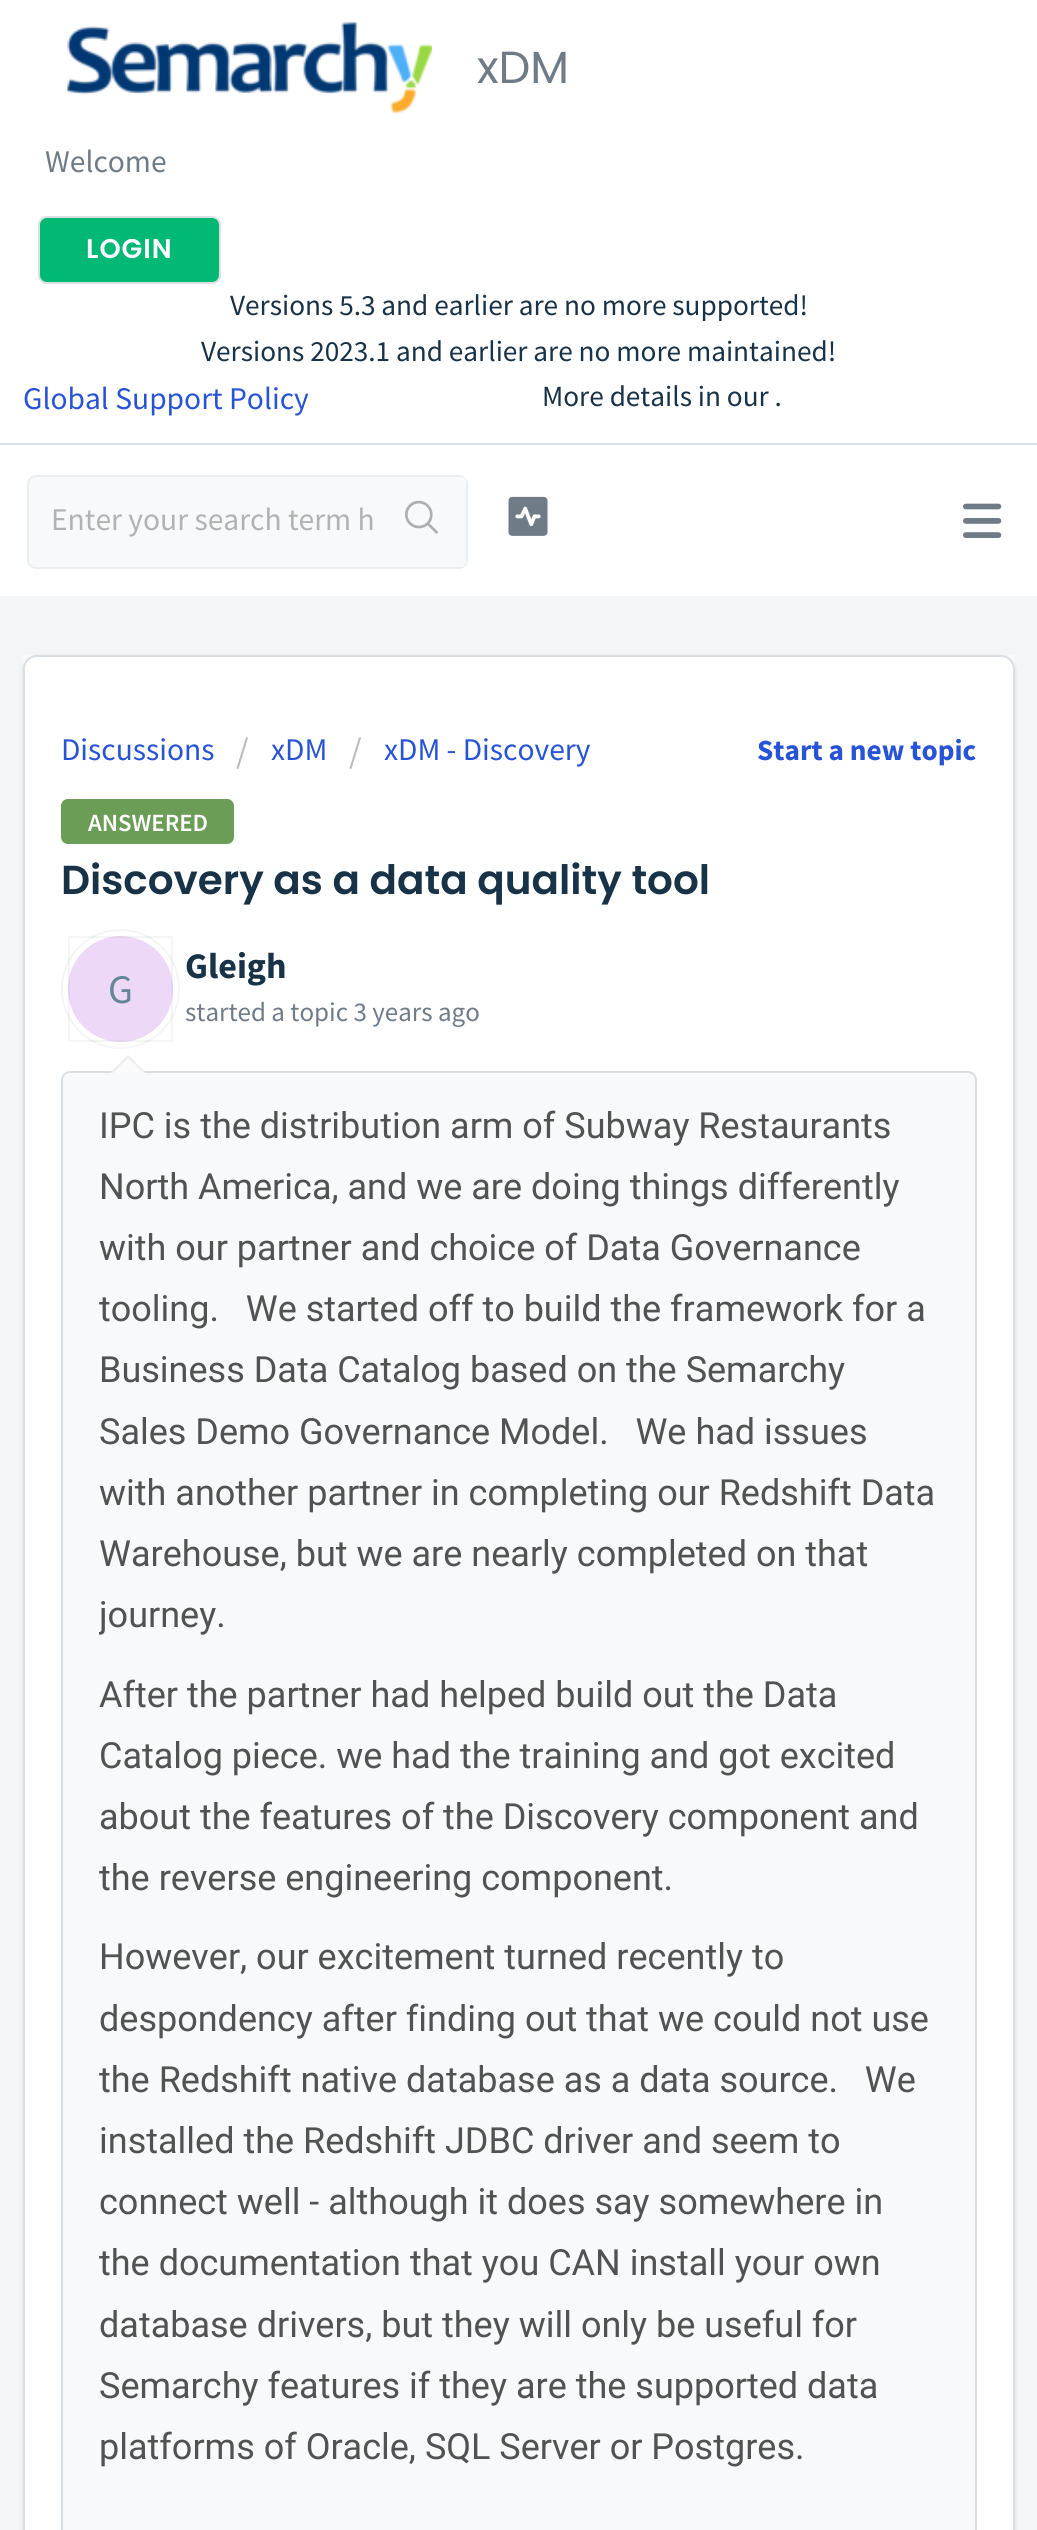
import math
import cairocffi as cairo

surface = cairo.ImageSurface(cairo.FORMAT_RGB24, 1037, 2530)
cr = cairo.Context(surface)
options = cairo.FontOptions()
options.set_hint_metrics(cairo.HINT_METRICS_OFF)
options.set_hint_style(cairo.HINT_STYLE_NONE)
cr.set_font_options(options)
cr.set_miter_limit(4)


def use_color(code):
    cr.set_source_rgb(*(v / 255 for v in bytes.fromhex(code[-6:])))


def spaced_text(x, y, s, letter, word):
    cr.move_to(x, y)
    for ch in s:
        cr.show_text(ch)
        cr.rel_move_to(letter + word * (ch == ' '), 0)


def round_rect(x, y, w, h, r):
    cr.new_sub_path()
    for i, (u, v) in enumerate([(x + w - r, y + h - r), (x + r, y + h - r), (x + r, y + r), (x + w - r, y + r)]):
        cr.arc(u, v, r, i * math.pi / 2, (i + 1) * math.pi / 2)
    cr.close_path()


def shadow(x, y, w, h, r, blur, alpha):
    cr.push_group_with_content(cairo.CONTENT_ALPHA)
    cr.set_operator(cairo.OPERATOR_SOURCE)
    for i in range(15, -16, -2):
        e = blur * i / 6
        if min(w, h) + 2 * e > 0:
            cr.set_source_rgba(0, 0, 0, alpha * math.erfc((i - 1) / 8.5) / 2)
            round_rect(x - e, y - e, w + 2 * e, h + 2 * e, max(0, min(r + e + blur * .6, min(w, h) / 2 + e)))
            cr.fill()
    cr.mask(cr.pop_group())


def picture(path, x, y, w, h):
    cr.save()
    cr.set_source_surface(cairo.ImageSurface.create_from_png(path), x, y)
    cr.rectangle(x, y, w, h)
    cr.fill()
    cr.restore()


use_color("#f3f5f7")
cr.paint()
use_color("#ffffff")
cr.rectangle(0, 0, 1037, 596)
cr.fill()
use_color("#dadfe3")
cr.rectangle(0, 443, 1037, 2)
cr.fill()
picture("img1.png", 67, 22, 365, 91)
cr.select_font_face("Poppins")
cr.set_font_size(45)
use_color("#6f7c87")
cr.move_to(477, 83)
cr.show_text("xDM")
cr.select_font_face("Source Sans Pro")
cr.set_font_size(31.5)
cr.move_to(45, 172)
cr.show_text("Welcome")
use_color("#02b875")
round_rect(39, 217, 181, 66, 8)
cr.fill_preserve()
use_color("#dadfe3")
cr.stroke()
cr.select_font_face("Poppins SemiBold")
cr.set_font_size(27)
use_color("#ffffff")
spaced_text(86, 258, "LOGIN", 1, 0)
cr.select_font_face("Source Sans Pro")
cr.set_font_size(29.25)
use_color("#183247")
cr.move_to(230, 315)
cr.show_text("Versions 5.3 and earlier are no more supported!")
cr.move_to(201, 361)
cr.show_text("Versions 2023.1 and earlier are no more maintained!")
cr.set_font_size(31.5)
use_color("#2753d7")
cr.move_to(23, 409)
cr.show_text("Global Support Policy")
cr.set_font_size(29.25)
use_color("#183247")
cr.move_to(542, 406)
cr.show_text("More details in our .")
use_color("#f8f9fa")
round_rect(28, 476, 439, 92, 8)
cr.fill_preserve()
use_color("#ebeef0")
cr.stroke()
cr.set_font_size(31.5)
use_color("#b2b2b2")
cr.move_to(51, 530)
cr.show_text("Enter your search term h")
use_color("#f8f9fa")
round_rect(378, 477, 88, 90, 5)
cr.fill()
picture("img2.png", 405, 500, 33, 34)
picture("img3.png", 508, 496, 40, 40)
picture("img4.png", 963, 503, 39, 35)
cr.rectangle(23, 655, 992, 14)
cr.fill()
use_color("#3f3f44")
shadow(23, 657, 992, 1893, 14, 2, 0.15)
use_color("#ffffff")
round_rect(24, 656, 990, 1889, 13)
cr.fill_preserve()
use_color("#dadfe3")
cr.stroke()
use_color("#2753d7")
cr.move_to(61, 760)
cr.show_text("Discussions")
cr.set_font_size(36)
use_color("#bbbbbb")
cr.move_to(236, 763)
cr.show_text("/")
cr.set_font_size(31.5)
use_color("#2753d7")
cr.move_to(271, 760)
cr.show_text("xDM")
cr.set_font_size(36)
use_color("#bbbbbb")
cr.move_to(349, 763)
cr.show_text("/")
cr.set_font_size(31.5)
use_color("#2753d7")
cr.move_to(384, 760)
cr.show_text("xDM - Discovery")
cr.select_font_face("Source Sans Pro", cairo.FONT_SLANT_NORMAL, cairo.FONT_WEIGHT_BOLD)
cr.set_font_size(29.25)
cr.move_to(757, 760)
cr.show_text("Start a new topic")
use_color("#6b9d56")
round_rect(61, 799, 173, 45, 7)
cr.fill()
cr.select_font_face("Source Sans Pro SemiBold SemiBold")
cr.set_font_size(24.75)
use_color("#ffffff")
cr.move_to(88, 831)
cr.show_text("ANSWERED")
cr.select_font_face("Poppins SemiBold")
cr.set_font_size(40.5)
use_color("#183247")
cr.move_to(61, 894)
cr.show_text("Discovery as a data quality tool")
round_rect(62, 930, 117, 118, 58.5)
use_color("#f3f5f7")
cr.stroke()
use_color("#eed8f7")
round_rect(68, 936, 105, 106, 52.5)
cr.fill()
cr.rectangle(69, 937, 103, 104)
cr.set_source_rgba(0, 0, 0, 0.04)
cr.stroke()
cr.select_font_face("Source Sans Pro")
use_color("#638699")
cr.move_to(108, 1003)
cr.show_text("G")
use_color("#f8f9fa")
round_rect(62, 1072, 914, 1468, 8)
cr.fill_preserve()
use_color("#dadfe3")
cr.stroke()
use_color("#ebebeb")
cr.new_path()
cr.move_to(146, 1073)
cr.line_to(110, 1073)
cr.line_to(128, 1055)
cr.close_path()
cr.fill()
use_color("#fafafa")
cr.new_path()
cr.move_to(144, 1073)
cr.line_to(112.5, 1073)
cr.line_to(128, 1057.5)
cr.close_path()
cr.fill()
cr.select_font_face("Source Sans Pro", cairo.FONT_SLANT_NORMAL, cairo.FONT_WEIGHT_BOLD)
cr.set_font_size(36)
use_color("#183247")
cr.move_to(185, 978)
cr.show_text("Gleigh")
cr.select_font_face("Source Sans Pro")
cr.set_font_size(27)
use_color("#6f7c87")
cr.move_to(185, 1021)
cr.show_text("started a topic 3 years ago")
cr.select_font_face("Roboto")
cr.set_font_size(36)
use_color("#525252")
cr.move_to(99, 1138)
cr.show_text("IPC is the distribution arm of Subway Restaurants")
cr.move_to(99, 1199)
cr.show_text("North America, and we are doing things differently")
cr.move_to(99, 1260)
cr.show_text("with our partner and choice of Data Governance")
cr.move_to(99, 1321)
cr.show_text("tooling.   We started off to build the framework for a")
cr.move_to(99, 1382)
cr.show_text("Business Data Catalog based on the Semarchy")
cr.move_to(99, 1444)
cr.show_text("Sales Demo Governance Model.   We had issues")
cr.move_to(99, 1505)
cr.show_text("with another partner in completing our Redshift Data")
cr.move_to(99, 1566)
cr.show_text("Warehouse, but we are nearly completed on that")
cr.save()
cr.rectangle(99, 1096, 839, 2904)
cr.clip()
cr.move_to(99, 1627)
cr.show_text("journey.")
cr.restore()
cr.move_to(99, 1707)
cr.show_text("After the partner had helped build out the Data")
cr.move_to(99, 1768)
cr.show_text("Catalog piece. we had the training and got excited")
cr.move_to(99, 1829)
cr.show_text("about the features of the Discovery component and")
cr.move_to(99, 1890)
cr.show_text("the reverse engineering component.")
cr.move_to(99, 1969)
cr.show_text("However, our excitement turned recently to")
cr.move_to(99, 2031)
cr.show_text("despondency after finding out that we could not use")
cr.move_to(99, 2092)
cr.show_text("the Redshift native database as a data source.   We")
cr.move_to(99, 2153)
cr.show_text("installed the Redshift JDBC driver and seem to")
cr.move_to(99, 2214)
cr.show_text("connect well - although it does say somewhere in")
cr.move_to(99, 2275)
cr.show_text("the documentation that you CAN install your own")
cr.move_to(99, 2337)
cr.show_text("database drivers, but they will only be useful for")
cr.move_to(99, 2398)
cr.show_text("Semarchy features if they are the supported data")
cr.move_to(99, 2459)
cr.show_text("platforms of Oracle, SQL Server or Postgres.")
surface.write_to_png("result.png")
